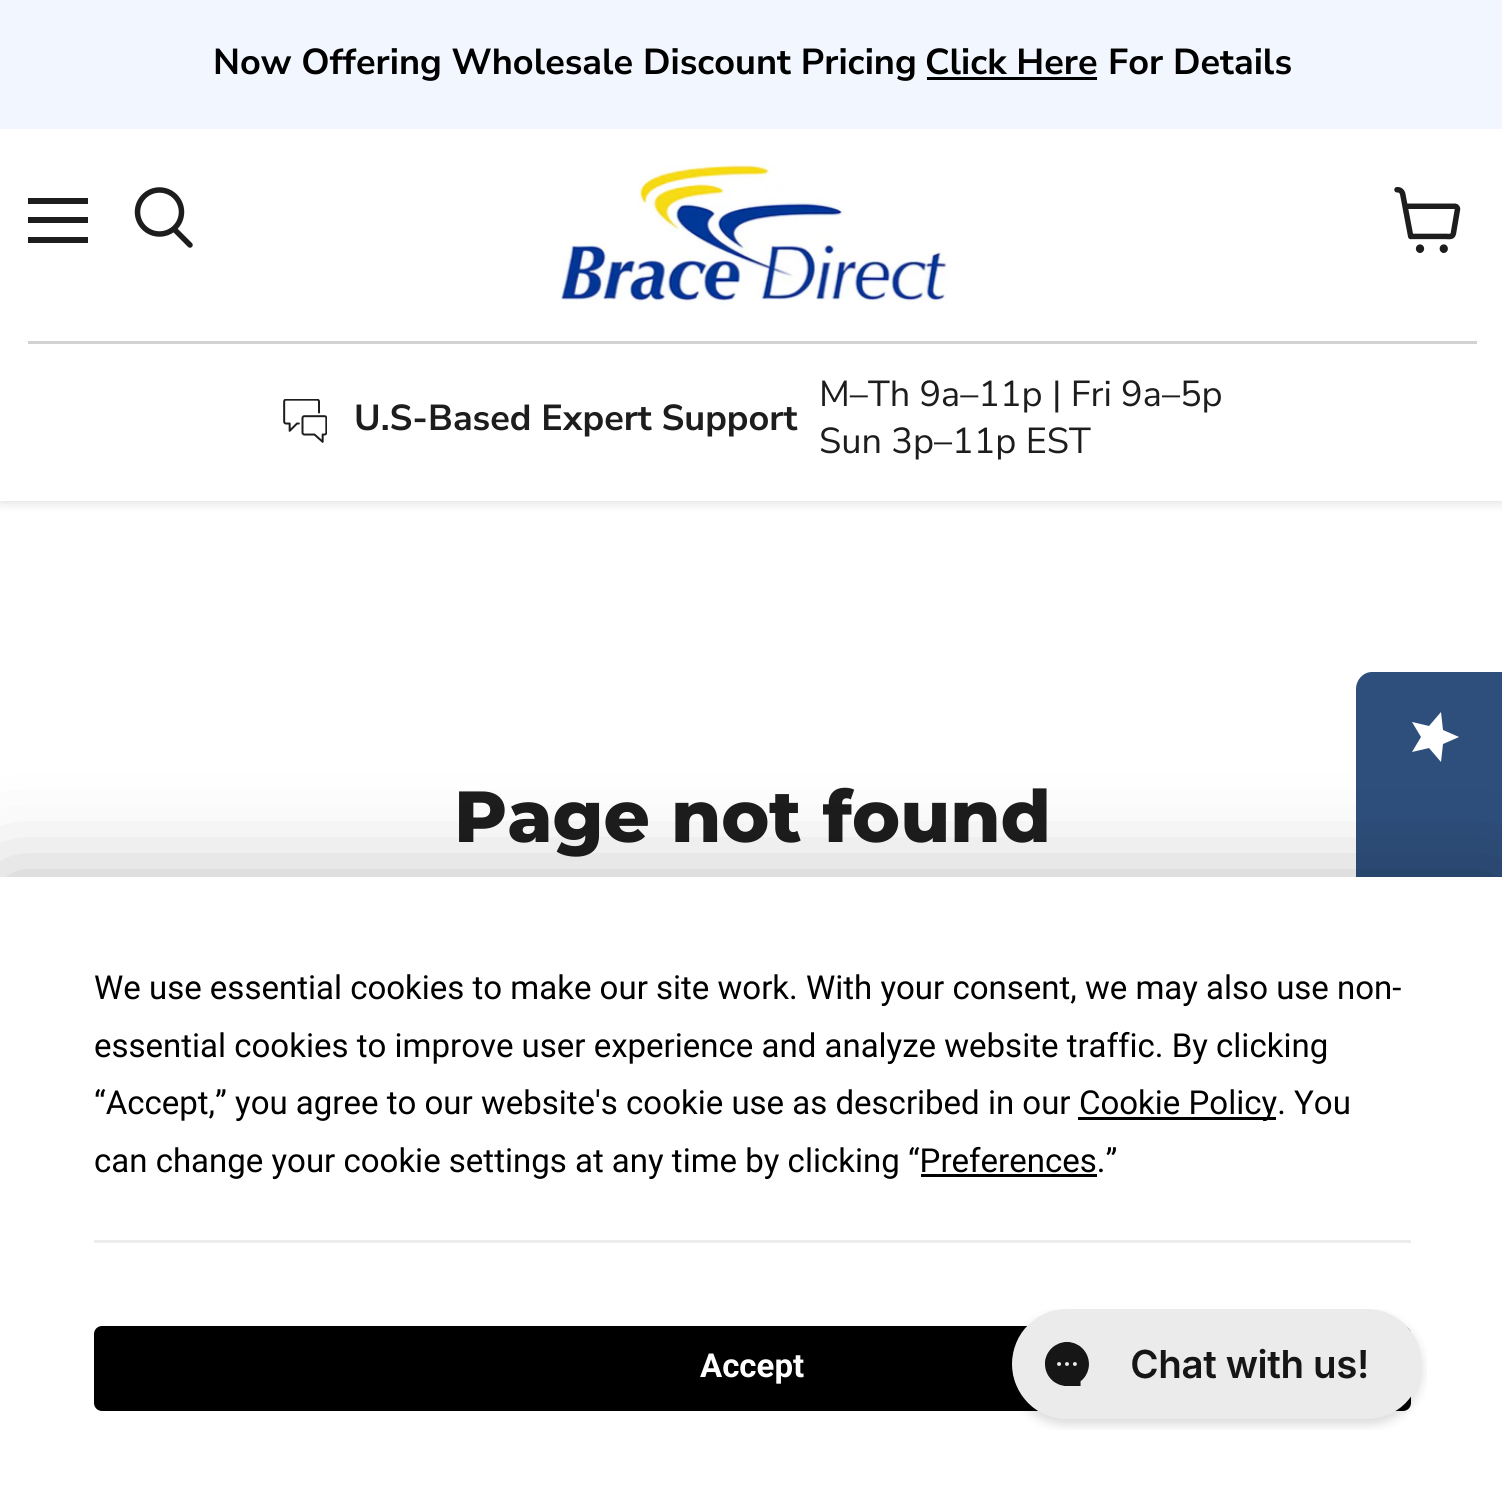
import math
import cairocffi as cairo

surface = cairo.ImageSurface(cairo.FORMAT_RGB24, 1502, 1491)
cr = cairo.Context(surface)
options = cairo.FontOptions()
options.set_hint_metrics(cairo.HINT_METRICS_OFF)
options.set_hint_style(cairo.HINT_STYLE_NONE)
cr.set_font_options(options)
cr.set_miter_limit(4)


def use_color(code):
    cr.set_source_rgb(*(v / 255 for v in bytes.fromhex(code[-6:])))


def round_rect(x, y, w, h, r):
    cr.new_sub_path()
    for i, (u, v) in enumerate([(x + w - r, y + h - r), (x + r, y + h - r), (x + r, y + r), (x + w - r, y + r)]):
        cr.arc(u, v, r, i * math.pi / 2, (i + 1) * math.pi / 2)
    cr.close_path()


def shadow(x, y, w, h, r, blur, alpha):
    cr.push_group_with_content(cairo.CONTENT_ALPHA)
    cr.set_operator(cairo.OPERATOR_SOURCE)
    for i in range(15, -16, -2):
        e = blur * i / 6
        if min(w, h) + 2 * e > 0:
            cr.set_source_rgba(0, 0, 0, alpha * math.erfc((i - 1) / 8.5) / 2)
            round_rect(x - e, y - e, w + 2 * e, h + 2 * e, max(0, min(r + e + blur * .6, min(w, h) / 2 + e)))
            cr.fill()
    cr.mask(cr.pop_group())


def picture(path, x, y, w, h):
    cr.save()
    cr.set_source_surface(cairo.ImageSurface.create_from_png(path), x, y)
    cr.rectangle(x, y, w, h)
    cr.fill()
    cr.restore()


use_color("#ffffff")
cr.paint()
use_color("#808080")
shadow(0, 132, 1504, 371, 0, 5.5, 0.25)
use_color("#f2f6fe")
cr.rectangle(0, 0, 1502, 129)
cr.fill()
cr.select_font_face("Nunito Sans ExtraLight")
cr.set_font_size(36.1)
use_color("#000000")
cr.move_to(213, 74)
cr.show_text("Now Offering Wholesale Discount Pricing")
cr.move_to(925, 74)
cr.show_text("Click Here")
cr.rectangle(927, 77, 170, 3)
cr.fill()
cr.move_to(1108, 74)
cr.show_text("For Details")
use_color("#ffffff")
cr.rectangle(0, 129, 1502, 372)
cr.fill()
use_color("#1d1d1d")
cr.rectangle(28, 198, 60, 6)
cr.fill()
cr.rectangle(28, 217, 60, 6)
cr.fill()
cr.rectangle(28, 237, 60, 6)
cr.fill()
cr.new_path()
cr.move_to(190, 245)
cr.line_to(174.5, 229.5)
cr.set_line_width(5.5)
cr.set_line_cap(cairo.LINE_CAP_ROUND)
cr.stroke()
cr.arc(159.5, 212, 22, 0, 2 * math.pi)
cr.set_line_cap(cairo.LINE_CAP_BUTT)
cr.stroke()
picture("img1.png", 1394, 187, 67, 66)
picture("img2.png", 560, 164, 388, 141)
use_color("#d2d2d2")
cr.rectangle(28, 341, 1449, 3)
cr.fill()
picture("img3.png", 283, 399, 44, 44)
use_color("#1d1d1d")
cr.move_to(354, 430)
cr.show_text("U.S-Based Expert Support")
cr.select_font_face("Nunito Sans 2 ExtraLight")
cr.move_to(819, 406)
cr.show_text("M–Th 9a–11p | Fri 9a–5p")
cr.move_to(819, 453)
cr.show_text("Sun 3p–11p EST")
cr.select_font_face("Montserrat ExtraBold")
cr.set_font_size(72.25)
cr.move_to(454, 842)
cr.show_text("Page not found")
use_color("#2e4f7c")
cr.new_path()
cr.move_to(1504, 672)
cr.line_to(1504, 987)
cr.line_to(1372, 987)
cr.curve_to(1363, 987, 1356, 979, 1356, 970)
cr.line_to(1356, 689)
cr.curve_to(1356, 680, 1363, 672, 1372, 672)
cr.close_path()
cr.fill()
gradient = cairo.LinearGradient(1459, 712, 1459, 762)
gradient.add_color_stop_rgba(1, 1, 1, 1, 1)
gradient.add_color_stop_rgba(1, 0.918, 0.918, 0.918, 1)
cr.set_source(gradient)
cr.new_path()
cr.move_to(1421, 737)
cr.line_to(1412, 752)
cr.line_to(1429, 748)
cr.line_to(1441, 762)
cr.line_to(1443, 744)
cr.line_to(1459, 737)
cr.line_to(1443, 730)
cr.line_to(1441, 712)
cr.line_to(1429, 726)
cr.line_to(1412, 722)
cr.close_path()
cr.fill()
use_color("#000000")
shadow(0, 877, 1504, 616, 0, 48, 0.25)
use_color("#ffffff")
cr.rectangle(0, 877, 1502, 614)
cr.fill()
cr.select_font_face("Roboto")
cr.set_font_size(33)
use_color("#000000")
cr.move_to(94, 999)
cr.show_text("We use essential cookies to make our site work. With your consent, we may also use non-")
cr.move_to(94, 1057)
cr.show_text("essential cookies to improve user experience and analyze website traffic. By clicking")
cr.move_to(94, 1114)
cr.show_text("“Accept,” you agree to our website's cookie use as described in our")
cr.rectangle(1078, 1117, 198, 3)
cr.fill()
cr.move_to(1079, 1114)
cr.show_text("Cookie Policy. You")
cr.move_to(94, 1172)
cr.show_text("can change your cookie settings at any time by clicking “Preferences.”")
cr.rectangle(921, 1174, 176, 3)
cr.fill()
use_color("#ededef")
cr.rectangle(94, 1240, 1317, 3)
cr.fill()
use_color("#000000")
round_rect(95.5, 1327.5, 1314, 82, 6.5)
cr.fill_preserve()
cr.set_line_width(3)
cr.stroke()
cr.select_font_face("Roboto", cairo.FONT_SLANT_NORMAL, cairo.FONT_WEIGHT_BOLD)
use_color("#ffffff")
cr.move_to(700, 1377)
cr.show_text("Accept")
picture("img4.png", 1012, 1309, 415, 121)
surface.write_to_png("result.png")
